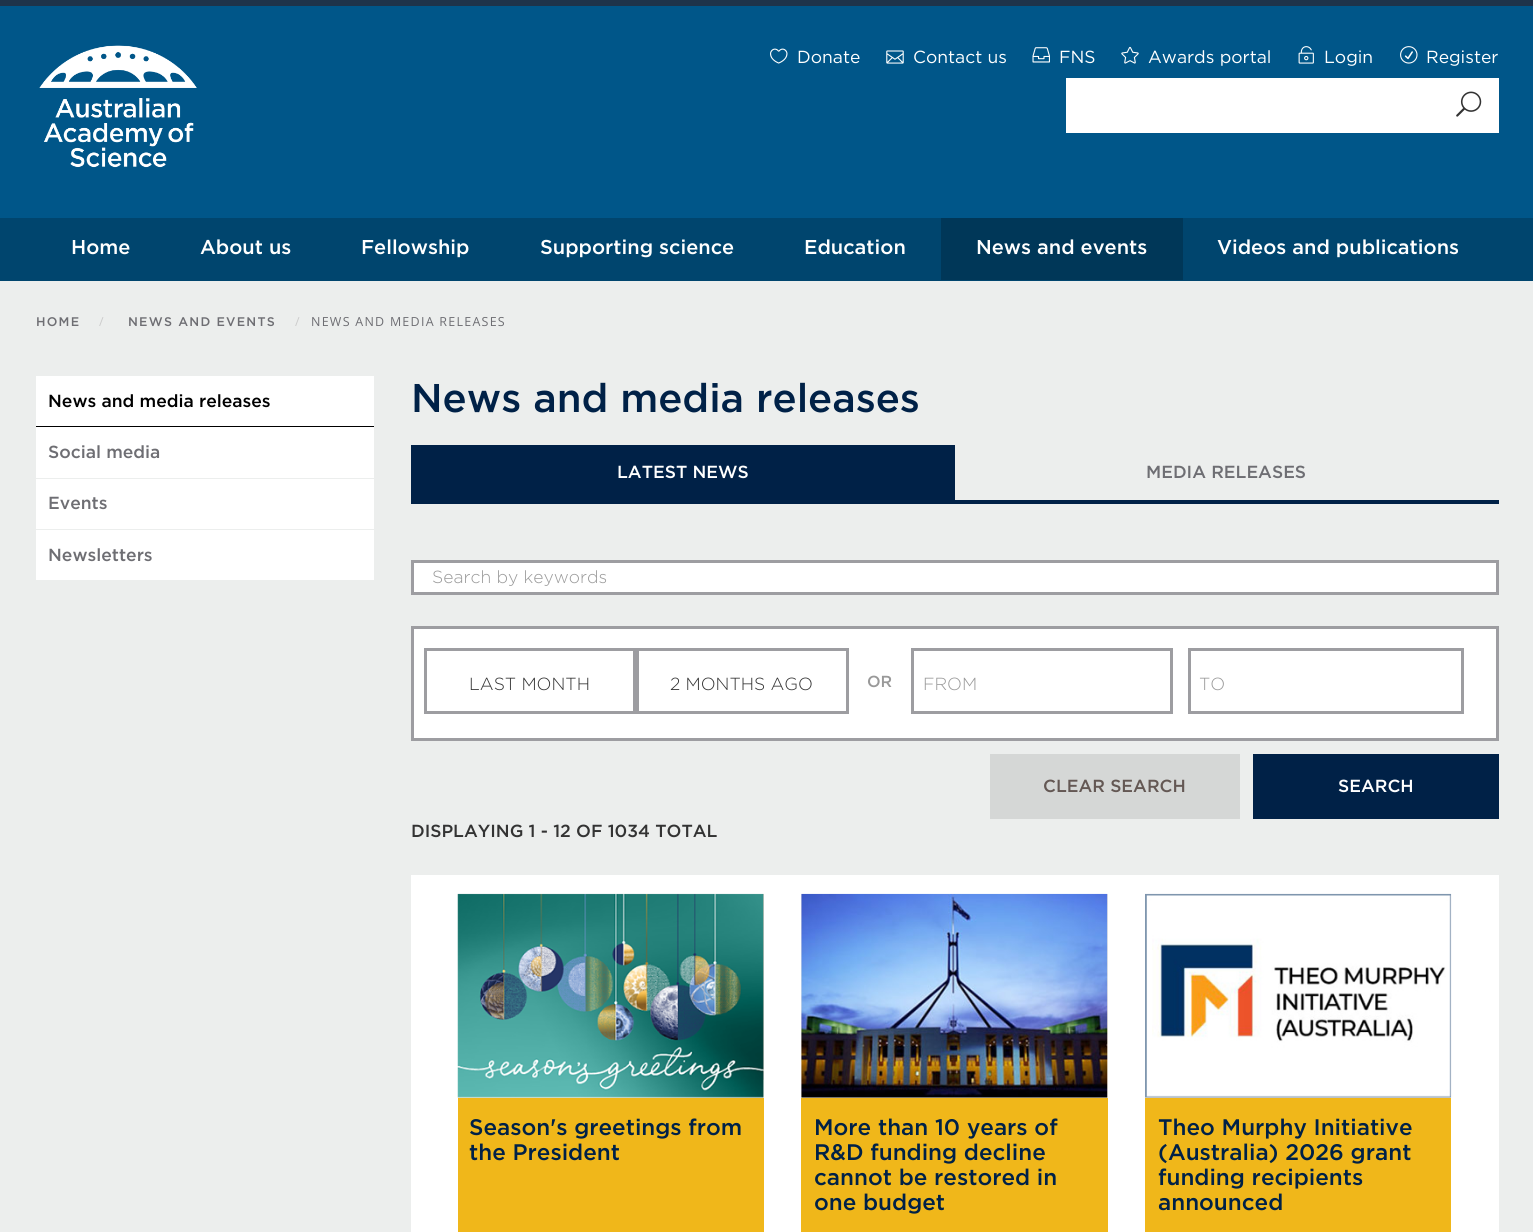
import math
import cairocffi as cairo

surface = cairo.ImageSurface(cairo.FORMAT_RGB24, 1533, 1232)
cr = cairo.Context(surface)
options = cairo.FontOptions()
options.set_hint_metrics(cairo.HINT_METRICS_OFF)
options.set_hint_style(cairo.HINT_STYLE_NONE)
cr.set_font_options(options)
cr.set_miter_limit(4)


def use_color(code):
    cr.set_source_rgb(*(v / 255 for v in bytes.fromhex(code[-6:])))


def spaced_text(x, y, s, letter, word):
    cr.move_to(x, y)
    for ch in s:
        cr.show_text(ch)
        cr.rel_move_to(letter + word * (ch == ' '), 0)


def picture(path, x, y, w, h):
    cr.save()
    cr.set_source_surface(cairo.ImageSurface.create_from_png(path), x, y)
    cr.rectangle(x, y, w, h)
    cr.fill()
    cr.restore()


use_color("#eceeed")
cr.paint()
use_color("#1e334a")
cr.rectangle(0, 0, 1533, 6)
cr.fill()
use_color("#005689")
cr.rectangle(0, 6, 1533, 212)
cr.fill()
picture("img1.png", 39, 45, 158, 123)
use_color("#ffffff")
cr.rectangle(1066, 78, 433, 55)
cr.fill()
picture("img2.png", 1456, 91, 26, 26)
picture("img3.png", 770, 48, 18, 16)
cr.select_font_face("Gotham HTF")
cr.set_font_size(17.5)
cr.move_to(797, 63)
cr.show_text("Donate")
picture("img4.png", 886, 50, 18, 14)
cr.move_to(913, 63)
cr.show_text("Contact us")
picture("img5.png", 1032, 47, 18, 16)
cr.move_to(1059, 63)
cr.show_text("FNS")
picture("img6.png", 1121, 46, 18, 18)
cr.move_to(1148, 63)
cr.show_text("Awards portal")
picture("img7.png", 1298, 46, 16, 18)
cr.move_to(1324, 63)
cr.show_text("Login")
picture("img8.png", 1400, 46, 18, 18)
cr.move_to(1426, 63)
cr.show_text("Register")
use_color("#00456e")
cr.rectangle(0, 218, 1533, 63)
cr.fill()
cr.select_font_face("Gotham HTF Medium")
cr.set_font_size(20)
use_color("#ffffff")
cr.move_to(71, 254)
cr.show_text("Home")
cr.move_to(200, 254)
cr.show_text("About us")
cr.move_to(361, 254)
cr.show_text("Fellowship")
cr.move_to(540, 254)
cr.show_text("Supporting science")
cr.move_to(804, 254)
cr.show_text("Education")
use_color("#003758")
cr.rectangle(941, 218, 242, 62)
cr.fill()
use_color("#ffffff")
cr.move_to(976, 254)
cr.show_text("News and events")
cr.move_to(1217, 254)
cr.show_text("Videos and publications")
cr.set_font_size(12.5)
use_color("#6e6e73")
spaced_text(36, 326, "HOME", 1.25, 0)
cr.select_font_face("Open Sans")
use_color("#cccccc")
spaced_text(99, 326, "/", 1.25, 0)
cr.select_font_face("Gotham HTF Medium")
use_color("#6e6e73")
spaced_text(128, 326, "NEWS AND EVENTS", 1.25, 0)
cr.select_font_face("Open Sans")
use_color("#cccccc")
spaced_text(295, 326, "/", 1.25, 0)
use_color("#6e6e73")
spaced_text(311, 326, "NEWS AND MEDIA RELEASES", 1.25, 0)
use_color("#ffffff")
cr.rectangle(36, 376, 338, 204)
cr.fill()
use_color("#000000")
cr.rectangle(36, 426, 338, 1)
cr.fill()
cr.select_font_face("Gotham HTF Medium")
cr.set_font_size(17.5)
cr.move_to(48, 407)
cr.show_text("News and media releases")
use_color("#eceeed")
cr.rectangle(36, 478, 338, 1)
cr.fill()
use_color("#6e6e73")
cr.move_to(48, 458)
cr.show_text("Social media")
use_color("#eceeed")
cr.rectangle(36, 529, 338, 1)
cr.fill()
use_color("#6e6e73")
cr.move_to(48, 509)
cr.show_text("Events")
cr.move_to(48, 561)
cr.show_text("Newsletters")
cr.set_font_size(40)
use_color("#002147")
cr.move_to(411, 412)
cr.show_text("News and media releases")
cr.rectangle(411, 445, 544, 59)
cr.fill()
cr.set_font_size(17.5)
use_color("#ffffff")
cr.move_to(617, 478)
cr.show_text("LATEST NEWS")
use_color("#002147")
cr.rectangle(955, 500, 544, 4)
cr.fill()
use_color("#6e6e73")
cr.move_to(1146, 478)
cr.show_text("MEDIA RELEASES")
use_color("#ffffff")
cr.rectangle(412.5, 561.5, 1085, 32)
cr.fill_preserve()
use_color("#9d9da1")
cr.set_line_width(3)
cr.stroke()
cr.select_font_face("Gotham HTF Light")
use_color("#999999")
cr.move_to(432, 583)
cr.show_text("Search by keywords")
use_color("#ffffff")
cr.rectangle(412.5, 627.5, 1085, 112)
cr.fill_preserve()
use_color("#9d9da1")
cr.stroke()
cr.rectangle(425.5, 649.5, 209, 63)
cr.stroke()
use_color("#333333")
cr.move_to(469, 690)
cr.show_text("LAST MONTH")
cr.rectangle(637.5, 649.5, 210, 63)
use_color("#9d9da1")
cr.stroke()
use_color("#333333")
cr.move_to(670, 690)
cr.show_text("2 MONTHS AGO")
cr.select_font_face("Gotham HTF Medium")
cr.set_font_size(16)
use_color("#999999")
cr.move_to(867, 687)
cr.show_text("OR")
cr.rectangle(912.5, 649.5, 259, 63)
use_color("#9d9da1")
cr.stroke()
cr.select_font_face("Gotham HTF Light")
cr.set_font_size(17.5)
use_color("#999999")
cr.move_to(923, 690)
cr.show_text("FROM")
cr.rectangle(1189.5, 649.5, 273, 63)
use_color("#9d9da1")
cr.stroke()
use_color("#999999")
cr.move_to(1199, 690)
cr.show_text("TO")
use_color("#d5d7d6")
cr.rectangle(990, 754, 250, 65)
cr.fill()
cr.select_font_face("Gotham HTF Medium")
use_color("#645854")
cr.move_to(1043, 792)
cr.show_text("CLEAR SEARCH")
use_color("#002147")
cr.rectangle(1253, 754, 246, 65)
cr.fill()
use_color("#ffffff")
cr.move_to(1338, 792)
cr.show_text("SEARCH")
use_color("#333333")
cr.move_to(411, 837)
cr.show_text("DISPLAYING 1 - 12 OF 1034 TOTAL")
use_color("#ffffff")
cr.rectangle(411, 875, 1088, 357)
cr.fill()
use_color("#f0b71a")
cr.rectangle(458, 1098, 306, 134)
cr.fill()
use_color("#f5efe3")
cr.rectangle(458, 894, 306, 204)
cr.fill()
picture("img9.png", 457, 893, 307, 205)
cr.set_font_size(22.5)
use_color("#002147")
cr.move_to(469, 1135)
cr.show_text("Season's greetings from")
cr.move_to(469, 1160)
cr.show_text("the President")
use_color("#f0b71a")
cr.rectangle(801, 1098, 307, 134)
cr.fill()
use_color("#f5efe3")
cr.rectangle(801, 894, 307, 204)
cr.fill()
picture("img10.png", 801, 893, 307, 205)
use_color("#002147")
cr.move_to(814, 1135)
cr.show_text("More than 10 years of")
cr.move_to(814, 1160)
cr.show_text("R&D funding decline")
cr.move_to(814, 1185)
cr.show_text("cannot be restored in")
cr.move_to(814, 1210)
cr.show_text("one budget")
use_color("#f0b71a")
cr.rectangle(1145, 1098, 306, 134)
cr.fill()
use_color("#f5efe3")
cr.rectangle(1145, 1097, 306, 1)
cr.fill()
picture("img11.png", 1145, 893, 307, 205)
use_color("#002147")
cr.move_to(1158, 1135)
cr.show_text("Theo Murphy Initiative")
cr.move_to(1158, 1160)
cr.show_text("(Australia) 2026 grant")
cr.move_to(1158, 1185)
cr.show_text("funding recipients")
cr.move_to(1158, 1210)
cr.show_text("announced")
surface.write_to_png("result.png")
